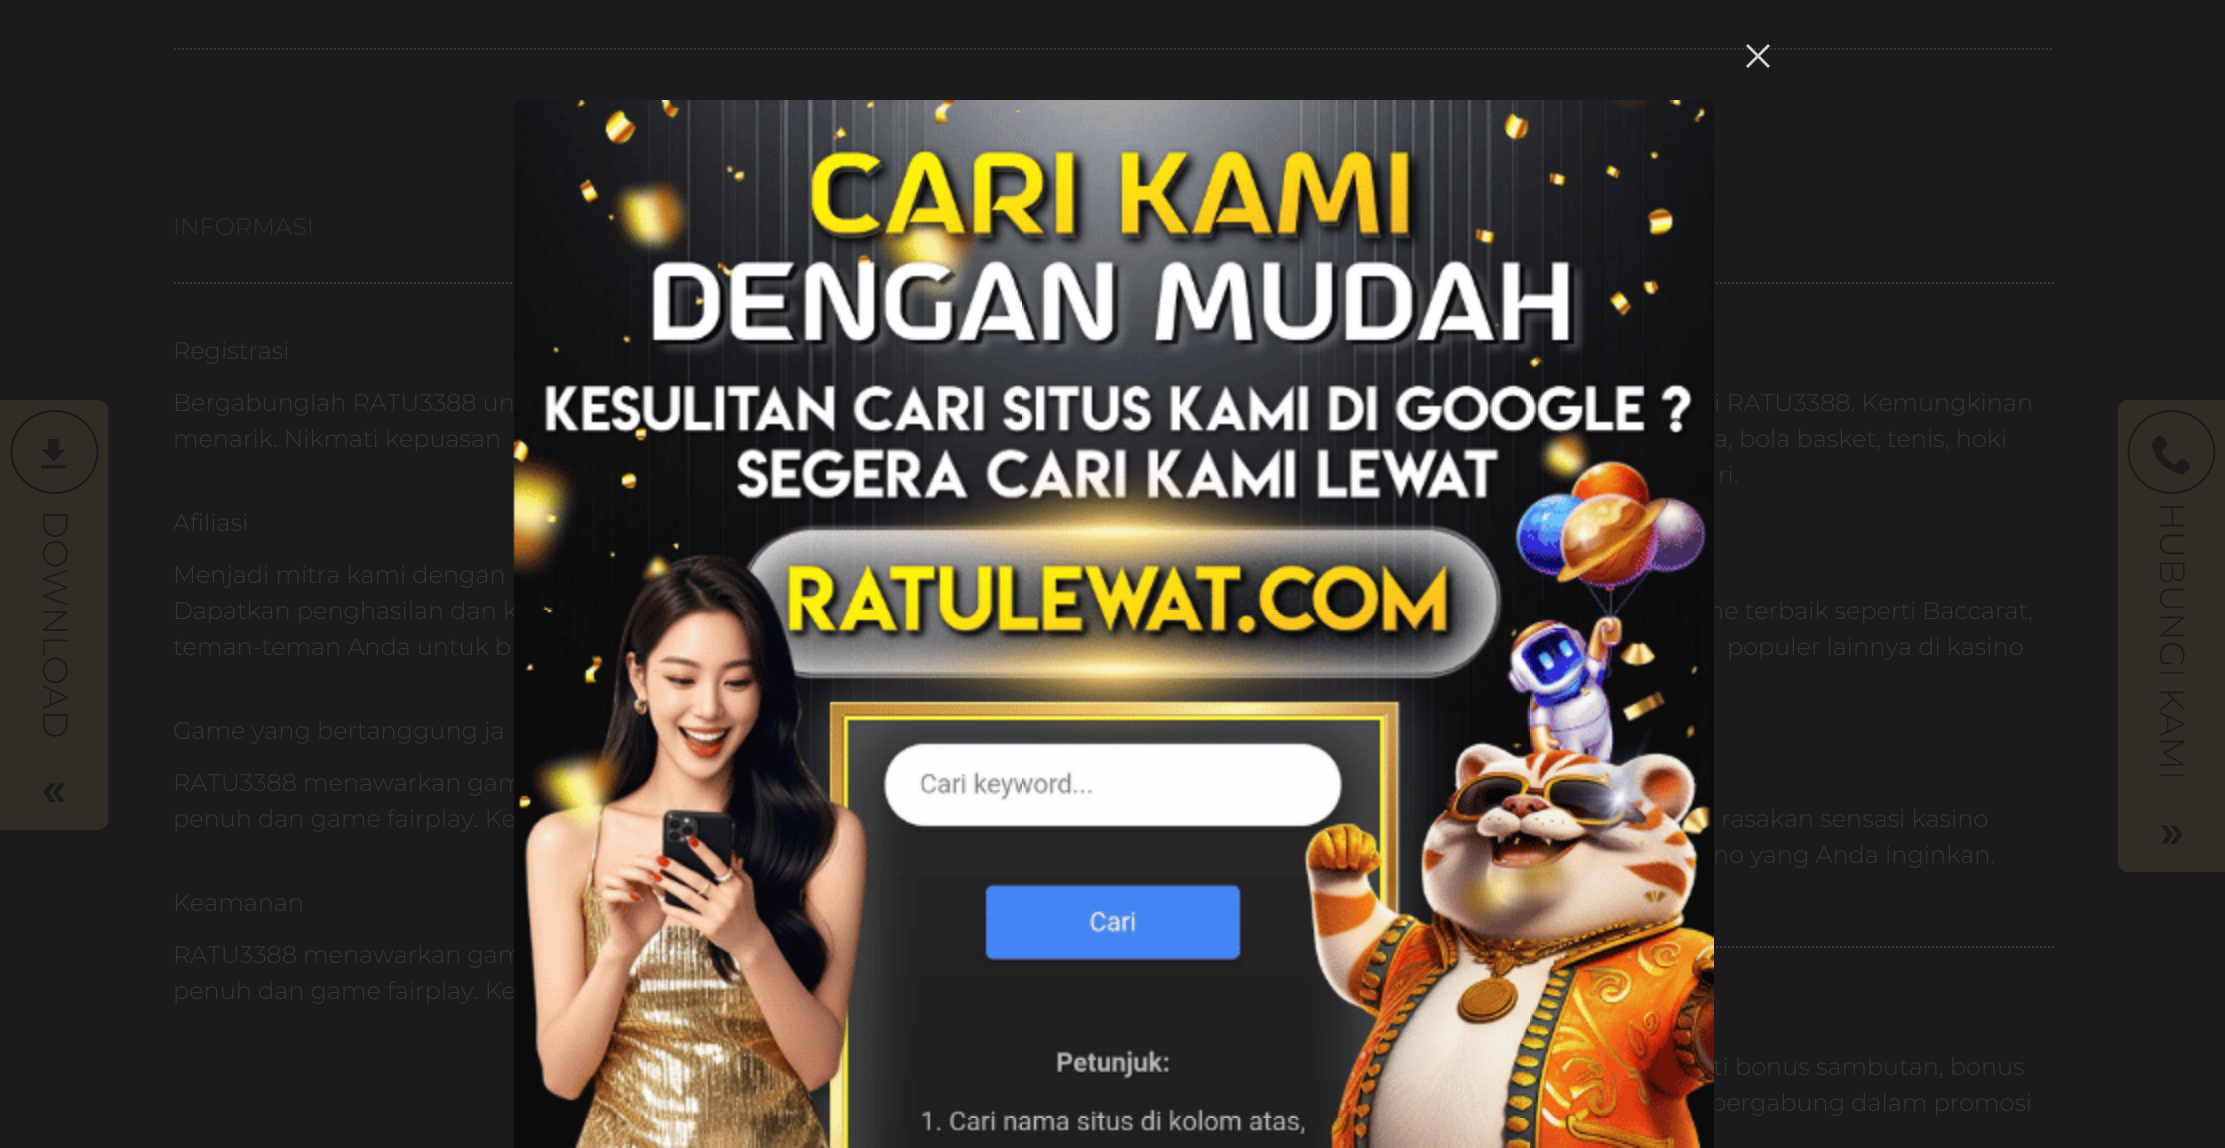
import math
import cairocffi as cairo

surface = cairo.ImageSurface(cairo.FORMAT_RGB24, 2225, 1148)
cr = cairo.Context(surface)
options = cairo.FontOptions()
options.set_hint_metrics(cairo.HINT_METRICS_OFF)
options.set_hint_style(cairo.HINT_STYLE_NONE)
cr.set_font_options(options)
cr.set_miter_limit(4)


def use_color(code):
    cr.set_source_rgb(*(v / 255 for v in bytes.fromhex(code[-6:])))


def picture(path, x, y, w, h):
    cr.save()
    cr.set_source_surface(cairo.ImageSurface.create_from_png(path), x, y)
    cr.rectangle(x, y, w, h)
    cr.fill()
    cr.restore()


use_color("#1b1b1d")
cr.paint()
cr.new_path()
cr.move_to(174, 49)
cr.line_to(2054, 49)
use_color("#343434")
cr.set_dash([2, 2])
cr.stroke()
picture("img1.png", 1746, 44, 24, 24)
cr.new_path()
cr.move_to(174, 283)
cr.line_to(1084, 283)
cr.stroke()
cr.select_font_face("Montserrat Light")
cr.set_font_size(24)
cr.move_to(173, 619)
cr.show_text("Dapatkan penghasilan dan k")
cr.move_to(173, 791)
cr.show_text("RATU3388 menawarkan gam")
cr.move_to(173, 827)
cr.show_text("penuh dan game fairplay. Ke")
cr.move_to(173, 963)
cr.show_text("RATU3388 menawarkan gam")
cr.move_to(173, 999)
cr.show_text("penuh dan game fairplay. Ke")
cr.new_path()
cr.move_to(1144, 283)
cr.line_to(2054, 283)
cr.stroke()
cr.move_to(1708, 619)
cr.show_text("ne terbaik seperti Baccarat,")
cr.new_path()
cr.move_to(1144, 947)
cr.line_to(2054, 947)
cr.stroke()
cr.move_to(1713, 1075)
cr.show_text("ti bonus sambutan, bonus")
cr.move_to(1710, 1111)
cr.show_text("bergabung dalam promosi")
picture("img2.png", 513, 100, 1201, 1048)
use_color("#2f2d25")
cr.new_path()
cr.move_to(0, 400)
cr.line_to(98, 400)
cr.curve_to(103.5, 400, 108, 404.5, 108, 410)
cr.line_to(108, 820)
cr.curve_to(108, 825.5, 103.5, 830, 98, 830)
cr.line_to(0, 830)
cr.close_path()
cr.fill()
cr.new_path()
cr.move_to(54.5, 411)
cr.curve_to(78.5, 411, 97.5, 429.5, 97.5, 452)
cr.curve_to(97.5, 474.5, 78.5, 493, 54.5, 493)
cr.curve_to(31, 493, 11.5, 474.5, 11.5, 452)
cr.curve_to(11.5, 429.5, 31, 411, 54.5, 411)
cr.close_path()
use_color("#1b1b1b")
cr.set_dash([])
cr.stroke()
picture("img3.png", 41, 439, 25, 30)
cr.set_font_size(35)
cr.save()
cr.translate(43, 510)
cr.rotate(90 * math.pi / 180)
cr.move_to(0, 0)
cr.show_text("DOWNLOAD")
cr.restore()
picture("img4.png", 43, 783, 23, 19)
cr.set_font_size(24)
use_color("#302e26")
cr.move_to(173, 235)
cr.show_text("INFORMASI")
use_color("#343434")
cr.move_to(173, 359)
cr.show_text("Registrasi")
cr.move_to(173, 411)
cr.show_text("Bergabunglah RATU3388 un")
cr.move_to(173, 447)
cr.show_text("menarik. Nikmati kepuasan")
cr.move_to(173, 531)
cr.show_text("Afiliasi")
cr.move_to(173, 583)
cr.show_text("Menjadi mitra kami dengan")
cr.move_to(173, 655)
cr.show_text("teman-teman Anda untuk b")
cr.move_to(173, 739)
cr.show_text("Game yang bertanggung ja")
cr.move_to(173, 911)
cr.show_text("Keamanan")
cr.move_to(1714, 411)
cr.show_text("i RATU3388. Kemungkinan")
cr.move_to(1714, 447)
cr.show_text("a, bola basket, tenis, hoki")
cr.move_to(1718, 483)
cr.show_text("ri.")
cr.move_to(1727, 655)
cr.show_text("populer lainnya di kasino")
cr.move_to(1721, 827)
cr.show_text("rasakan sensasi kasino")
cr.move_to(1713, 863)
cr.show_text("no yang Anda inginkan.")
use_color("#2f2d25")
cr.new_path()
cr.move_to(2128, 400)
cr.line_to(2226, 400)
cr.line_to(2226, 872)
cr.line_to(2128, 872)
cr.curve_to(2122.5, 872, 2118, 867.5, 2118, 862)
cr.line_to(2118, 410)
cr.curve_to(2118, 404.5, 2122.5, 400, 2128, 400)
cr.close_path()
cr.fill()
cr.new_path()
cr.move_to(2171.5, 411)
cr.curve_to(2195, 411, 2214.5, 429.5, 2214.5, 452)
cr.curve_to(2214.5, 474.5, 2195, 493, 2171.5, 493)
cr.curve_to(2147.5, 493, 2128.5, 474.5, 2128.5, 452)
cr.curve_to(2128.5, 429.5, 2147.5, 411, 2171.5, 411)
cr.close_path()
use_color("#1b1b1b")
cr.stroke()
picture("img5.png", 2151, 435, 40, 40)
cr.set_font_size(35)
cr.save()
cr.translate(2160, 502)
cr.rotate(90 * math.pi / 180)
cr.move_to(0, 0)
cr.show_text("HUBUNGI KAMI")
cr.restore()
picture("img6.png", 2160, 825, 23, 19)
surface.write_to_png("result.png")
